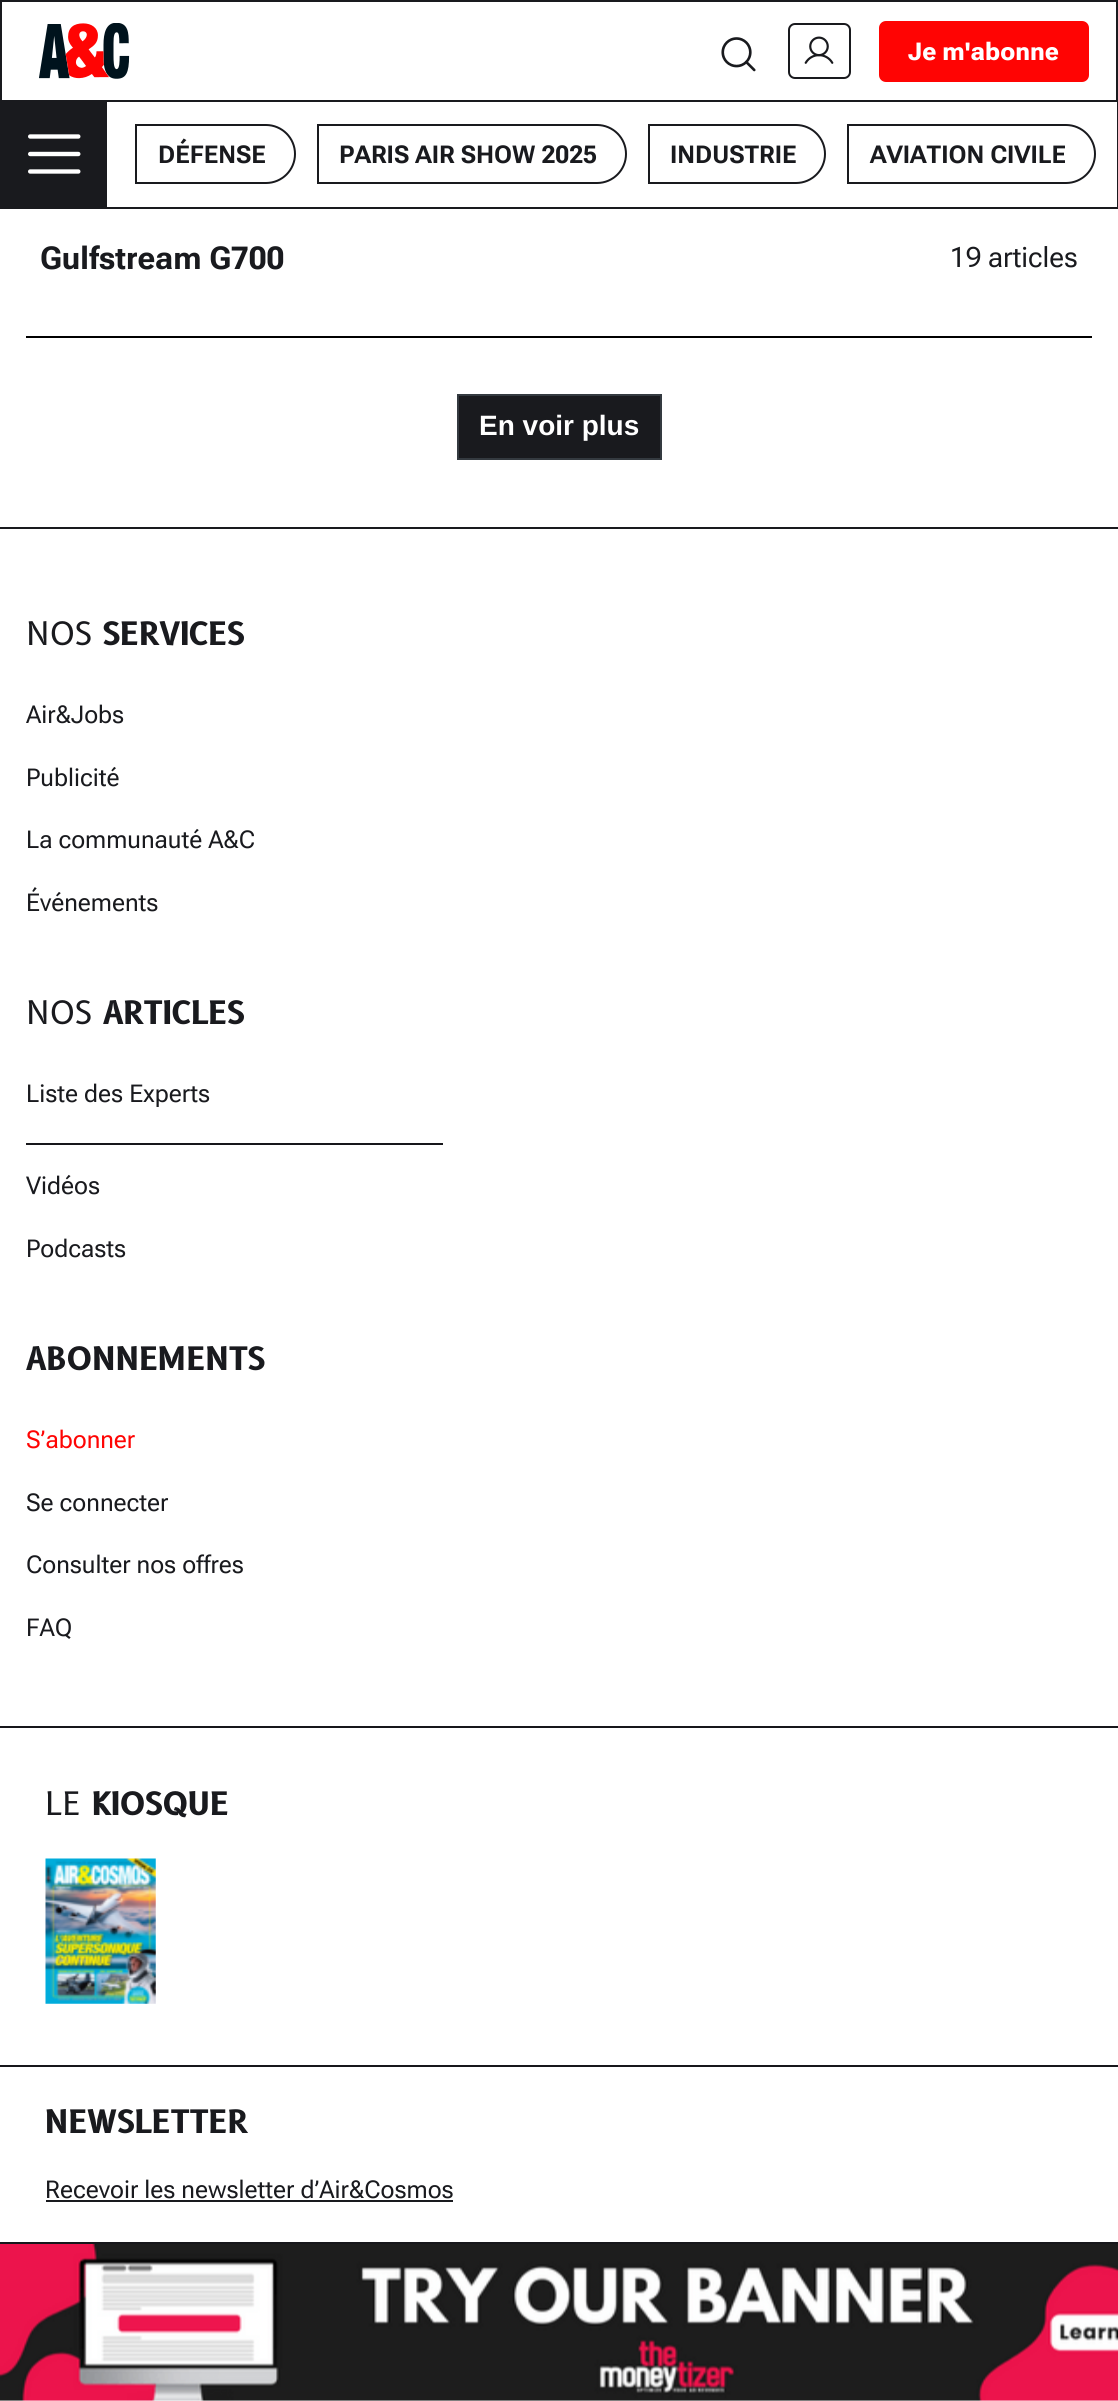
import math
import cairocffi as cairo

surface = cairo.ImageSurface(cairo.FORMAT_RGB24, 1118, 2401)
cr = cairo.Context(surface)
options = cairo.FontOptions()
options.set_hint_metrics(cairo.HINT_METRICS_OFF)
options.set_hint_style(cairo.HINT_STYLE_NONE)
cr.set_font_options(options)
cr.set_miter_limit(4)


def use_color(code):
    cr.set_source_rgb(*(v / 255 for v in bytes.fromhex(code[-6:])))


def round_rect(x, y, w, h, r):
    cr.new_sub_path()
    for i, (u, v) in enumerate([(x + w - r, y + h - r), (x + r, y + h - r), (x + r, y + r), (x + w - r, y + r)]):
        cr.arc(u, v, r, i * math.pi / 2, (i + 1) * math.pi / 2)
    cr.close_path()


def picture(path, x, y, w, h):
    cr.save()
    cr.set_source_surface(cairo.ImageSurface.create_from_png(path), x, y)
    cr.rectangle(x, y, w, h)
    cr.fill()
    cr.restore()


use_color("#ffffff")
cr.paint()
cr.rectangle(1, 1, 1116, 100)
use_color("#191a1e")
cr.stroke()
picture("img1.png", 39, 23, 91, 56)
picture("img2.png", 721, 37, 35, 35)
picture("img3.png", 788, 23, 63, 56)
use_color("#ff0403")
round_rect(879, 21, 210, 61, 7)
cr.fill()
cr.select_font_face("Roboto Flex ExtraBold")
cr.set_font_size(24.5)
use_color("#ffffff")
cr.move_to(908, 60)
cr.show_text("Je m'abonne")
use_color("#191a1e")
cr.rectangle(1117, 102, 1, 106)
cr.fill()
cr.rectangle(0, 207, 1118, 2)
cr.fill()
cr.rectangle(0, 102, 2, 106)
cr.fill()
cr.rectangle(2, 102, 105, 105)
cr.fill()
picture("img4.png", 28, 134, 53, 40)
cr.new_path()
cr.move_to(136, 125)
cr.line_to(266, 125)
cr.curve_to(282, 125, 295, 138, 295, 154)
cr.curve_to(295, 170, 282, 183, 266, 183)
cr.line_to(136, 183)
cr.close_path()
cr.stroke()
cr.select_font_face("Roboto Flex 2", cairo.FONT_SLANT_NORMAL, cairo.FONT_WEIGHT_BOLD)
cr.move_to(158, 163)
cr.show_text("DÉFENSE")
cr.new_path()
cr.move_to(318, 125)
cr.line_to(597, 125)
cr.curve_to(613, 125, 626, 138, 626, 154)
cr.curve_to(626, 170, 613, 183, 597, 183)
cr.line_to(318, 183)
cr.close_path()
cr.stroke()
cr.move_to(339, 163)
cr.show_text("PARIS AIR SHOW 2025")
cr.new_path()
cr.move_to(649, 125)
cr.line_to(796, 125)
cr.curve_to(812, 125, 825, 138, 825, 154)
cr.curve_to(825, 170, 812, 183, 796, 183)
cr.line_to(649, 183)
cr.close_path()
cr.stroke()
cr.move_to(670, 163)
cr.show_text("INDUSTRIE")
cr.new_path()
cr.move_to(848, 125)
cr.line_to(1066, 125)
cr.curve_to(1082, 125, 1095, 138, 1095, 154)
cr.curve_to(1095, 170, 1082, 183, 1066, 183)
cr.line_to(848, 183)
cr.close_path()
cr.stroke()
cr.move_to(870, 163)
cr.show_text("AVIATION CIVILE")
cr.select_font_face("Roboto Flex", cairo.FONT_SLANT_NORMAL, cairo.FONT_WEIGHT_BOLD)
cr.set_font_size(31.5)
cr.move_to(40, 269)
cr.show_text("Gulfstream G700")
cr.select_font_face("Roboto Flex")
cr.set_font_size(28)
cr.move_to(950, 267)
cr.show_text("19 articles")
use_color("#000000")
cr.rectangle(26, 336, 1066, 2)
cr.fill()
use_color("#191a1e")
cr.rectangle(458, 395, 203, 64)
cr.fill_preserve()
use_color("#343a40")
cr.stroke()
cr.select_font_face("Liberation Sans", cairo.FONT_SLANT_NORMAL, cairo.FONT_WEIGHT_BOLD)
use_color("#ffffff")
cr.move_to(479, 435)
cr.show_text("En voir plus")
use_color("#191a1e")
cr.rectangle(0, 527, 1118, 2)
cr.fill()
cr.select_font_face("B612")
cr.set_font_size(31.5)
cr.move_to(26, 645)
cr.show_text("NOS")
cr.select_font_face("B612", cairo.FONT_SLANT_NORMAL, cairo.FONT_WEIGHT_BOLD)
cr.move_to(103, 645)
cr.show_text("SERVICES")
cr.select_font_face("Roboto Flex 2")
cr.set_font_size(24.5)
cr.move_to(26, 723)
cr.show_text("Air&Jobs")
cr.move_to(26, 786)
cr.show_text("Publicité")
cr.move_to(26, 848)
cr.show_text("La communauté A&C")
cr.move_to(26, 911)
cr.show_text("Événements")
cr.select_font_face("B612")
cr.set_font_size(31.5)
cr.move_to(26, 1024)
cr.show_text("NOS")
cr.select_font_face("B612", cairo.FONT_SLANT_NORMAL, cairo.FONT_WEIGHT_BOLD)
cr.move_to(103, 1024)
cr.show_text("ARTICLES")
cr.select_font_face("Roboto Flex 2")
cr.set_font_size(24.5)
cr.move_to(26, 1102)
cr.show_text("Liste des Experts")
use_color("#17171b")
cr.rectangle(26, 1143, 417, 2)
cr.fill()
use_color("#191a1e")
cr.move_to(26, 1194)
cr.show_text("Vidéos")
cr.move_to(26, 1257)
cr.show_text("Podcasts")
cr.select_font_face("B612", cairo.FONT_SLANT_NORMAL, cairo.FONT_WEIGHT_BOLD)
cr.set_font_size(31.5)
cr.move_to(26, 1370)
cr.show_text("ABONNEMENTS")
cr.select_font_face("Roboto Flex 2")
cr.set_font_size(24.5)
use_color("#ff0403")
cr.move_to(26, 1448)
cr.show_text("S’abonner")
use_color("#191a1e")
cr.move_to(26, 1511)
cr.show_text("Se connecter")
cr.move_to(26, 1573)
cr.show_text("Consulter nos offres")
cr.move_to(26, 1636)
cr.show_text("FAQ")
use_color("#17171b")
cr.rectangle(0, 1726, 1118, 2)
cr.fill()
cr.select_font_face("B612")
cr.set_font_size(31.5)
use_color("#191a1e")
cr.move_to(45, 1815)
cr.show_text("LE")
cr.select_font_face("B612", cairo.FONT_SLANT_NORMAL, cairo.FONT_WEIGHT_BOLD)
cr.move_to(92, 1815)
cr.show_text("KIOSQUE")
picture("img5.png", 45, 1858, 111, 146)
use_color("#17171b")
cr.rectangle(0, 2065, 1118, 2)
cr.fill()
use_color("#191a1e")
cr.move_to(45, 2133)
cr.show_text("NEWSLETTER")
cr.select_font_face("Roboto Flex 2")
cr.set_font_size(24.5)
cr.move_to(45, 2198)
cr.show_text("Recevoir les newsletter d’Air&Cosmos")
cr.rectangle(46, 2200, 407, 2)
cr.fill()
use_color("#17171b")
cr.rectangle(0, 2242, 1118, 2)
cr.fill()
picture("img6.png", 0, 2244, 1118, 157)
surface.write_to_png("result.png")
